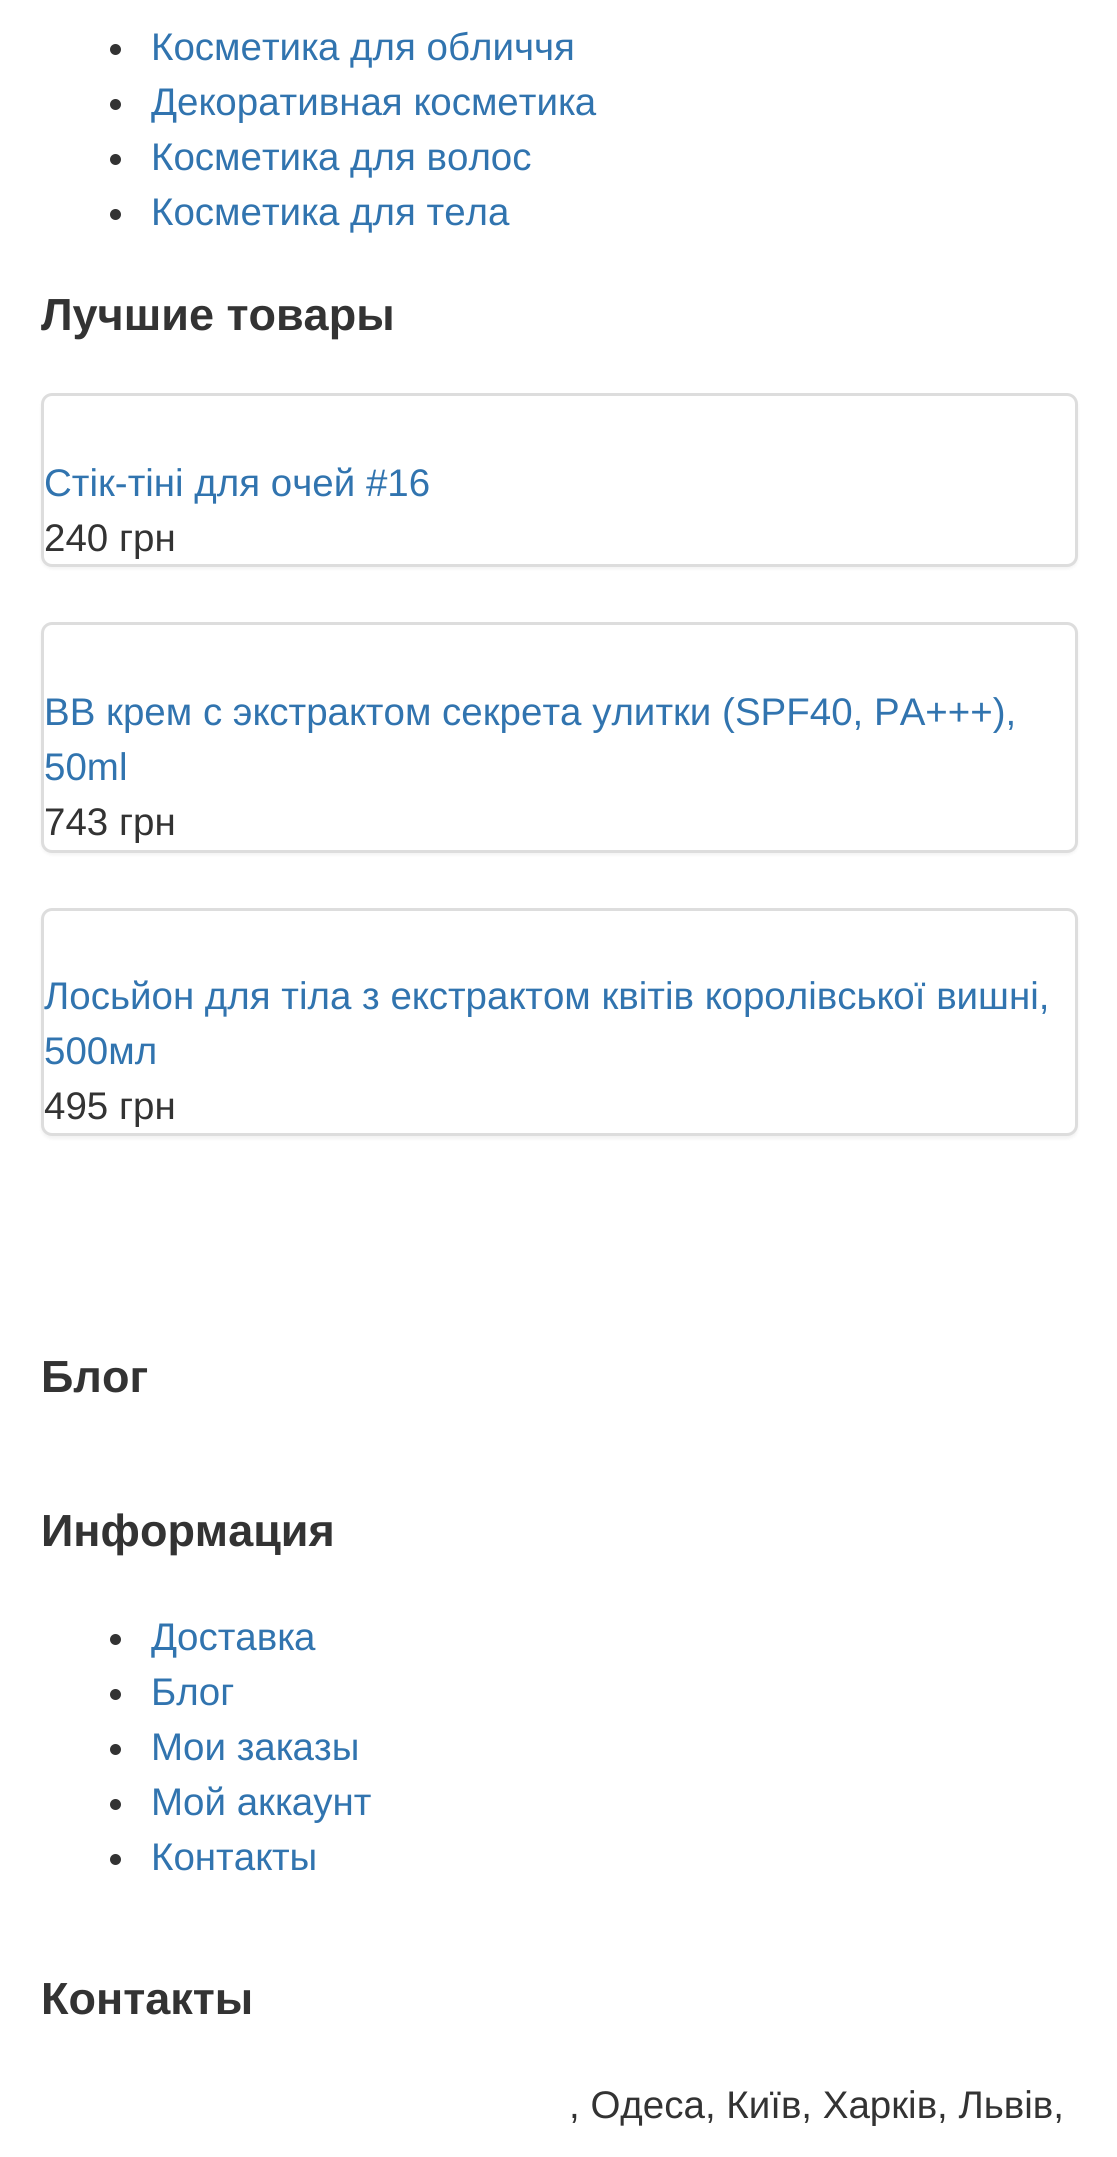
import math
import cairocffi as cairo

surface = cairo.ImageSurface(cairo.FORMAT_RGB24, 1117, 2157)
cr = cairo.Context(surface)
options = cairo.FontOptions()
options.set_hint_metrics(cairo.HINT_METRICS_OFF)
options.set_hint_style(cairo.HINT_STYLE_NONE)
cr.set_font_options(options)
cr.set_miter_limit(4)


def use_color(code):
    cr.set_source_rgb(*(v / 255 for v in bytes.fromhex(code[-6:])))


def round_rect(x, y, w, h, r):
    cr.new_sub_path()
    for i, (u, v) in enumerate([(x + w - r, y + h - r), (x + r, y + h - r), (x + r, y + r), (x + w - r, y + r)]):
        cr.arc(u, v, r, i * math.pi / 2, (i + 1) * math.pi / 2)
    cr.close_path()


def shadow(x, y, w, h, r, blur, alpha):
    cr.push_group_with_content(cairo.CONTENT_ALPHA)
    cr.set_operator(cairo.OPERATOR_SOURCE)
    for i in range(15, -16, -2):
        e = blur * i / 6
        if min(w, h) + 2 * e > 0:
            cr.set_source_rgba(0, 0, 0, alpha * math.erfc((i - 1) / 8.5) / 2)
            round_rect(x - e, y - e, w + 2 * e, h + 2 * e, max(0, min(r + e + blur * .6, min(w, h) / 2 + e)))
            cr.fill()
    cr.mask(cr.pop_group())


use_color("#ffffff")
cr.paint()
use_color("#333333")
cr.arc(115.5, 49.5, 5.5, 0, 2 * math.pi)
cr.fill()
cr.select_font_face("Liberation Sans")
cr.set_font_size(38.5)
use_color("#3174af")
cr.move_to(151, 60)
cr.show_text("Косметика для обличчя")
use_color("#333333")
cr.new_path()
cr.arc(115.5, 104.5, 5.5, 0, 2 * math.pi)
cr.fill()
use_color("#3174af")
cr.move_to(151, 115)
cr.show_text("Декоративная косметика")
use_color("#333333")
cr.new_path()
cr.arc(115.5, 159.5, 5.5, 0, 2 * math.pi)
cr.fill()
use_color("#3174af")
cr.move_to(151, 170)
cr.show_text("Косметика для волос")
use_color("#333333")
cr.new_path()
cr.arc(115.5, 214.5, 5.5, 0, 2 * math.pi)
cr.fill()
use_color("#3174af")
cr.move_to(151, 225)
cr.show_text("Косметика для тела")
cr.select_font_face("Liberation Sans", cairo.FONT_SLANT_NORMAL, cairo.FONT_WEIGHT_BOLD)
cr.set_font_size(45)
use_color("#333333")
cr.move_to(41, 330)
cr.show_text("Лучшие товары")
use_color("#000000")
shadow(41, 396, 1037, 173, 11, 1.5, 0.05)
use_color("#ffffff")
round_rect(42.5, 394.5, 1034, 171, 9.5)
cr.fill_preserve()
use_color("#dddddd")
cr.set_line_width(3)
cr.stroke()
cr.select_font_face("Liberation Sans")
cr.set_font_size(38.5)
use_color("#3174af")
cr.move_to(44, 496)
cr.show_text("Стік-тіні для очей #16")
use_color("#333333")
cr.move_to(44, 551)
cr.show_text("240 грн")
use_color("#000000")
shadow(41, 624, 1037, 231, 11, 1.5, 0.05)
use_color("#ffffff")
round_rect(42.5, 623.5, 1034, 228, 9.5)
cr.fill_preserve()
use_color("#dddddd")
cr.stroke()
use_color("#3174af")
cr.move_to(44, 725)
cr.show_text("ВВ крем с экстрактом секрета улитки (SPF40, PA+++),")
cr.move_to(44, 780)
cr.show_text("50ml")
use_color("#333333")
cr.move_to(44, 835)
cr.show_text("743 грн")
use_color("#000000")
shadow(41, 910, 1037, 229, 11, 1.5, 0.05)
use_color("#ffffff")
round_rect(42.5, 909.5, 1034, 225, 9.5)
cr.fill_preserve()
use_color("#dddddd")
cr.stroke()
use_color("#3174af")
cr.move_to(44, 1009)
cr.show_text("Лосьйон для тіла з екстрактом квітів королівської вишні,")
cr.move_to(44, 1064)
cr.show_text("500мл")
use_color("#333333")
cr.move_to(44, 1119)
cr.show_text("495 грн")
cr.select_font_face("Liberation Sans", cairo.FONT_SLANT_NORMAL, cairo.FONT_WEIGHT_BOLD)
cr.set_font_size(45)
cr.move_to(41, 1392)
cr.show_text("Блог")
cr.move_to(41, 1546)
cr.show_text("Информация")
cr.new_path()
cr.arc(115.5, 1639.5, 5.5, 0, 2 * math.pi)
cr.fill()
cr.select_font_face("Liberation Sans")
cr.set_font_size(38.5)
use_color("#3174af")
cr.move_to(151, 1650)
cr.show_text("Доставка")
use_color("#333333")
cr.new_path()
cr.arc(115.5, 1694.5, 5.5, 0, 2 * math.pi)
cr.fill()
use_color("#3174af")
cr.move_to(151, 1705)
cr.show_text("Блог")
use_color("#333333")
cr.new_path()
cr.arc(115.5, 1749.5, 5.5, 0, 2 * math.pi)
cr.fill()
use_color("#3174af")
cr.move_to(151, 1760)
cr.show_text("Мои заказы")
use_color("#333333")
cr.new_path()
cr.arc(115.5, 1804.5, 5.5, 0, 2 * math.pi)
cr.fill()
use_color("#3174af")
cr.move_to(151, 1815)
cr.show_text("Мой аккаунт")
use_color("#333333")
cr.new_path()
cr.arc(115.5, 1859.5, 5.5, 0, 2 * math.pi)
cr.fill()
use_color("#3174af")
cr.move_to(151, 1870)
cr.show_text("Контакты")
cr.select_font_face("Liberation Sans", cairo.FONT_SLANT_NORMAL, cairo.FONT_WEIGHT_BOLD)
cr.set_font_size(45)
use_color("#333333")
cr.move_to(41, 2014)
cr.show_text("Контакты")
cr.select_font_face("Liberation Sans")
cr.set_font_size(38.5)
cr.move_to(569, 2118)
cr.show_text(", Одеса, Київ, Харків, Львів,")
surface.write_to_png("result.png")
